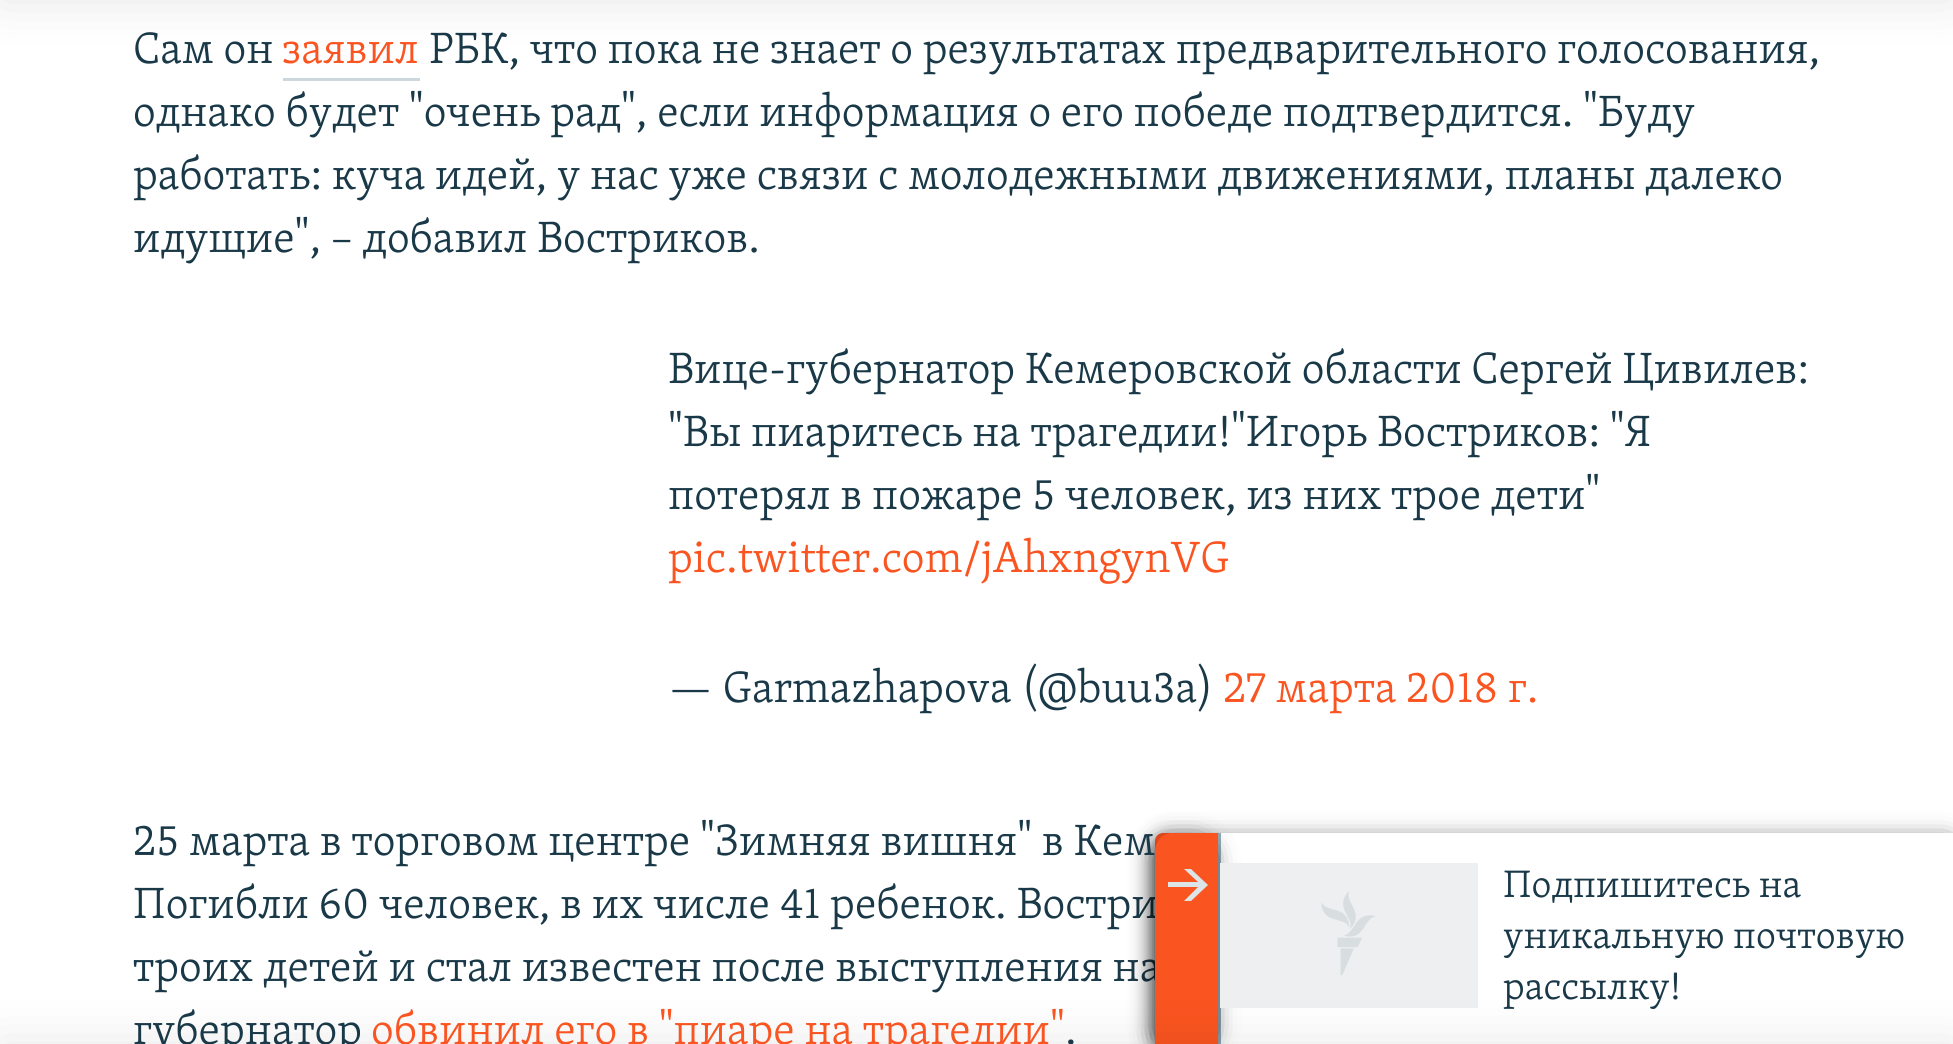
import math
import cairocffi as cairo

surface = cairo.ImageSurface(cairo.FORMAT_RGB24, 1953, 1044)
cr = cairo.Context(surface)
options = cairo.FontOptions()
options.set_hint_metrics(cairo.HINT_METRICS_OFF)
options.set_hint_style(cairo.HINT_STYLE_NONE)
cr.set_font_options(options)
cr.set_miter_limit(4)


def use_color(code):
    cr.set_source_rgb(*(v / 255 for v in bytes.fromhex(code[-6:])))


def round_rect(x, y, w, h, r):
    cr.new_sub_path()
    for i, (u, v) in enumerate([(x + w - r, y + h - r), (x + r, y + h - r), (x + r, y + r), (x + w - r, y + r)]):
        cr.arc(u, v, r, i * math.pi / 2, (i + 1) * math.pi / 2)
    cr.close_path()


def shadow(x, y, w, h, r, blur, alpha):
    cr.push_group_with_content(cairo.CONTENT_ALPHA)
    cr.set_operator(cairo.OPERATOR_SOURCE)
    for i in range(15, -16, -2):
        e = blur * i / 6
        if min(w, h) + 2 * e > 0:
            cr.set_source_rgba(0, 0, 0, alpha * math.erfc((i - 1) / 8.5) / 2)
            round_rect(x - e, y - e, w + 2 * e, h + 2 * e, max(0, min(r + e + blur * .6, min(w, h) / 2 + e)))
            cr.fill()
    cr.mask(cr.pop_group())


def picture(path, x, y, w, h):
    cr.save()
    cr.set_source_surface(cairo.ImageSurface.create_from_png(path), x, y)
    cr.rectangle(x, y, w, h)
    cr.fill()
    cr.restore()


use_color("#ffffff")
cr.paint()
use_color("#000000")
shadow(0, -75, 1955, 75, 0, 25, 0.1)
cr.select_font_face("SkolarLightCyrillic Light")
cr.set_font_size(45)
use_color("#1a3948")
cr.move_to(133, 918)
cr.show_text("Погибли 60 человек, в их числе 41 ребенок. Востри")
cr.move_to(133, 981)
cr.show_text("троих детей и стал известен после выступления на")
use_color("#000000")
shadow(1160, 843, 790, 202, 2.5, 12.5, 0.85)
use_color("#fa5420")
cr.new_path()
cr.move_to(1163, 833)
cr.line_to(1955, 833)
cr.line_to(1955, 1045)
cr.line_to(1155, 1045)
cr.line_to(1155, 841)
cr.curve_to(1155, 836.5, 1158.5, 833, 1163, 833)
cr.close_path()
cr.fill()
use_color("#ffffff")
cr.rectangle(1221, 833, 732, 211)
cr.fill()
use_color("#95adb9")
cr.rectangle(1218, 833, 3, 211)
cr.fill()
cr.save()
cr.set_fill_rule(cairo.FILL_RULE_EVEN_ODD)
cr.new_path()
cr.move_to(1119, 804)
cr.line_to(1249, 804)
cr.line_to(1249, 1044)
cr.line_to(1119, 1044)
cr.close_path()
cr.move_to(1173, 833)
cr.line_to(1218, 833)
cr.line_to(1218, 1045)
cr.line_to(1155, 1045)
cr.line_to(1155, 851)
cr.curve_to(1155, 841, 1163, 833, 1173, 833)
cr.close_path()
cr.clip()
use_color("#000000")
shadow(1158, 843, 52, 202, 13, 12.5, 0.85)
cr.restore()
use_color("#edeff0")
cr.rectangle(1220, 863, 258, 145)
cr.fill()
picture("img1.png", 1321, 891, 55, 85)
use_color("#000000")
shadow(0, 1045, 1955, 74, 0, 25, 0.1)
use_color("#1a3948")
cr.move_to(133, 63)
cr.show_text("Сам он")
use_color("#fa5420")
cr.move_to(282, 63)
cr.show_text("заявил")
use_color("#ccd8de")
cr.rectangle(283, 78, 137, 3)
cr.fill()
use_color("#1a3948")
cr.move_to(429, 63)
cr.show_text("РБК, что пока не знает о результатах предварительного голосования,")
cr.move_to(133, 126)
cr.show_text("однако будет \"очень рад\", если информация о его победе подтвердится. \"Буду")
cr.move_to(133, 189)
cr.show_text("работать: куча идей, у нас уже связи с молодежными движениями, планы далеко")
cr.move_to(133, 252)
cr.show_text("идущие\", – добавил Востриков.")
cr.move_to(668, 383)
cr.show_text("Вице-губернатор Кемеровской области Сергей Цивилев:")
cr.move_to(668, 446)
cr.show_text("\"Вы пиаритесь на трагедии!\"Игорь Востриков: \"Я")
cr.move_to(668, 509)
cr.show_text("потерял в пожаре 5 человек, из них трое дети\"")
use_color("#fa5420")
cr.move_to(668, 572)
cr.show_text("pic.twitter.com/jAhxngynVG")
use_color("#1a3948")
cr.move_to(668, 702)
cr.show_text("— Garmazhapova (@buu3a)")
use_color("#fa5420")
cr.move_to(1223, 702)
cr.show_text("27 марта 2018 г.")
use_color("#1a3948")
cr.move_to(133, 855)
cr.show_text("25 марта в торговом центре \"Зимняя вишня\" в Кем")
cr.move_to(133, 1044)
cr.show_text("губернатор")
use_color("#fa5420")
cr.move_to(371, 1044)
cr.show_text("обвинил его в \"пиаре на трагедии\"")
use_color("#1a3948")
cr.move_to(1065, 1044)
cr.show_text(".")
use_color("#dce4e8")
cr.new_path()
cr.move_to(1208, 885)
cr.line_to(1191, 869)
cr.line_to(1184, 869)
cr.line_to(1198, 882)
cr.line_to(1168, 882)
cr.line_to(1168, 887)
cr.line_to(1198, 887)
cr.line_to(1184, 901)
cr.line_to(1191, 901)
cr.close_path()
cr.fill()
cr.set_font_size(39.4)
use_color("#1a3948")
cr.move_to(1503, 897)
cr.show_text("Подпишитесь на")
cr.move_to(1503, 948)
cr.show_text("уникальную почтовую")
cr.move_to(1503, 999)
cr.show_text("рассылку!")
surface.write_to_png("result.png")
